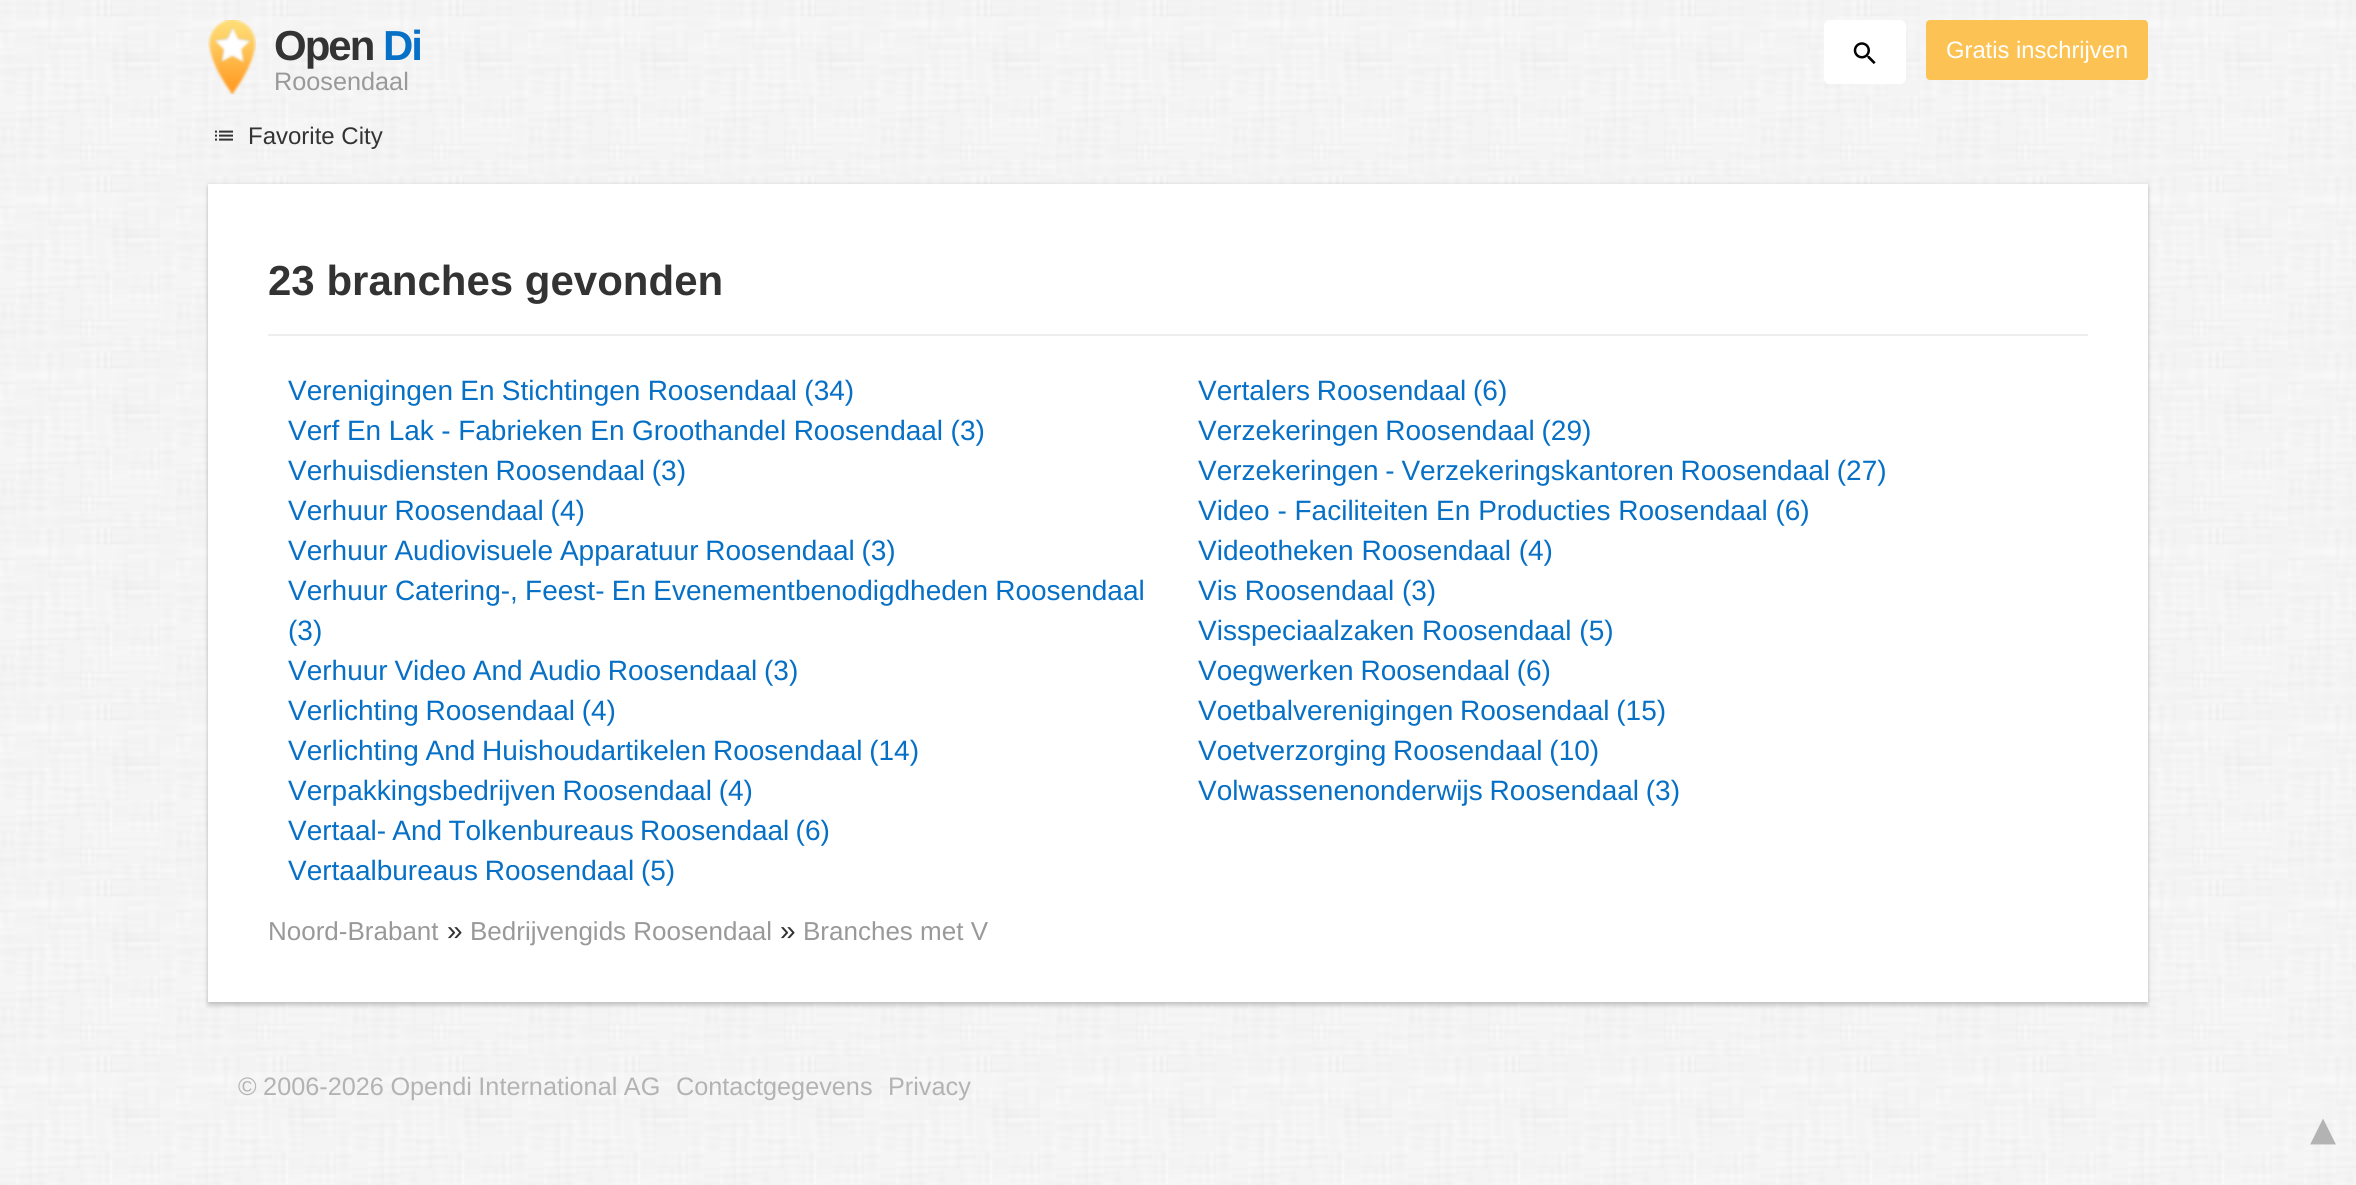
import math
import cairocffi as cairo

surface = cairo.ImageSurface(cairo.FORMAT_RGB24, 2356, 1185)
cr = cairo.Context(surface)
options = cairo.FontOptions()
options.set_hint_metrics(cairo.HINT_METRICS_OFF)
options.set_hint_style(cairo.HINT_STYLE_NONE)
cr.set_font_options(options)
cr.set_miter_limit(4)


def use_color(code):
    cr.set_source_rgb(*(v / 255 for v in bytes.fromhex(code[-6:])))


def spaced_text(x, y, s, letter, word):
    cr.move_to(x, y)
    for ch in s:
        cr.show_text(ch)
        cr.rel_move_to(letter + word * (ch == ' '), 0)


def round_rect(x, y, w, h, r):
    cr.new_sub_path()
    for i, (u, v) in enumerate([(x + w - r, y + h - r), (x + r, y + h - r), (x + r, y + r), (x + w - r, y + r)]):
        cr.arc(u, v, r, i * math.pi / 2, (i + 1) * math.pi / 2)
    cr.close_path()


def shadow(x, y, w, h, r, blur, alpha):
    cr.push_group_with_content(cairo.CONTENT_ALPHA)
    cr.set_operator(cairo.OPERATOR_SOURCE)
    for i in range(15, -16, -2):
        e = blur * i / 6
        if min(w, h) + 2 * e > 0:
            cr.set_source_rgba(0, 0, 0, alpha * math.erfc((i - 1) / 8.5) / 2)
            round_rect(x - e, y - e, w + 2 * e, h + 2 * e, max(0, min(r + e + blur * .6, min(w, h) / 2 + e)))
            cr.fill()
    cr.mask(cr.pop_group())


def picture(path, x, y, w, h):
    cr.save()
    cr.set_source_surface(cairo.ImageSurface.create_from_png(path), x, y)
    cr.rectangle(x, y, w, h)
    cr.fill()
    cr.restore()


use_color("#ffffff")
cr.paint()
picture("img1.png", 0, 0, 2356, 1185)
picture("img2.png", 208, 20, 48, 74)
cr.select_font_face("Liberation Sans", cairo.FONT_SLANT_NORMAL, cairo.FONT_WEIGHT_BOLD)
cr.set_font_size(42)
use_color("#333333")
spaced_text(274, 60, "Open", -2, 0)
use_color("#0670c6")
spaced_text(383, 60, "Di", -2, 0)
cr.select_font_face("Liberation Sans")
cr.set_font_size(25.25)
use_color("#999999")
cr.move_to(274, 90)
cr.show_text("Roosendaal")
use_color("#ffffff")
round_rect(1824, 20, 82, 64, 6)
cr.fill()
picture("img3.png", 1853, 42, 23, 22)
use_color("#fcc354")
round_rect(1926, 20, 222, 60, 4)
cr.fill()
cr.set_font_size(23.75)
use_color("#ffffff")
cr.move_to(1946, 58)
cr.show_text("Gratis inschrijven")
picture("img4.png", 215, 130, 18, 11)
cr.set_font_size(24)
use_color("#333333")
cr.move_to(248, 144)
cr.show_text("Favorite City")
use_color("#000000")
shadow(208, 184, 1940, 818, 0, 2, 0.12)
shadow(208, 188, 1940, 818, 0, 2, 0.16)
use_color("#ffffff")
cr.rectangle(208, 184, 1940, 818)
cr.fill()
use_color("#eeeeee")
cr.rectangle(268, 334, 1820, 2)
cr.fill()
cr.select_font_face("Liberation Sans", cairo.FONT_SLANT_NORMAL, cairo.FONT_WEIGHT_BOLD)
cr.set_font_size(42)
use_color("#333333")
cr.move_to(268, 295)
cr.show_text("23 branches gevonden")
cr.select_font_face("Liberation Sans")
cr.set_font_size(28)
use_color("#0670c6")
spaced_text(288, 400, "Verenigingen En Stichtingen Roosendaal (34)", 0, -0.5)
spaced_text(288, 440, "Verf En Lak - Fabrieken En Groothandel Roosendaal (3)", 0, -0.25)
spaced_text(288, 480, "Verhuisdiensten Roosendaal (3)", 0, -1)
spaced_text(288, 520, "Verhuur Roosendaal (4)", 0, -1)
spaced_text(288, 560, "Verhuur Audiovisuele Apparatuur Roosendaal (3)", 0, -1)
spaced_text(288, 600, "Verhuur Catering-, Feest- En Evenementbenodigdheden Roosendaal", 0, -0.5)
cr.move_to(288, 640)
cr.show_text("(3)")
spaced_text(288, 680, "Verhuur Video And Audio Roosendaal (3)", 0, -1)
spaced_text(288, 720, "Verlichting Roosendaal (4)", 0, -1)
spaced_text(288, 760, "Verlichting And Huishoudartikelen Roosendaal (14)", 0, -1)
spaced_text(288, 800, "Verpakkingsbedrijven Roosendaal (4)", 0, -1)
spaced_text(288, 840, "Vertaal- And Tolkenbureaus Roosendaal (6)", 0, -1.5)
spaced_text(288, 880, "Vertaalbureaus Roosendaal (5)", 0, -1)
spaced_text(1198, 400, "Vertalers Roosendaal (6)", 0, -1)
spaced_text(1198, 440, "Verzekeringen Roosendaal (29)", 0, -1)
spaced_text(1198, 480, "Verzekeringen - Verzekeringskantoren Roosendaal (27)", 0, -1)
cr.move_to(1198, 520)
cr.show_text("Video - Faciliteiten En Producties Roosendaal (6)")
cr.move_to(1198, 560)
cr.show_text("Videotheken Roosendaal (4)")
cr.move_to(1198, 600)
cr.show_text("Vis Roosendaal (3)")
cr.move_to(1198, 640)
cr.show_text("Visspeciaalzaken Roosendaal (5)")
spaced_text(1198, 680, "Voegwerken Roosendaal (6)", 0, -1)
spaced_text(1198, 720, "Voetbalverenigingen Roosendaal (15)", 0, -1)
spaced_text(1198, 760, "Voetverzorging Roosendaal (10)", 0, -1)
spaced_text(1198, 800, "Volwassenenonderwijs Roosendaal (3)", 0, -1)
cr.set_font_size(26)
use_color("#999999")
cr.move_to(268, 940)
cr.show_text("Noord-Brabant")
cr.set_font_size(28)
use_color("#333333")
cr.move_to(447, 940)
cr.show_text("»")
cr.set_font_size(26)
use_color("#999999")
cr.move_to(470, 940)
cr.show_text("Bedrijvengids Roosendaal")
cr.set_font_size(28)
use_color("#333333")
cr.move_to(780, 940)
cr.show_text("»")
cr.set_font_size(26)
use_color("#999999")
cr.move_to(803, 940)
cr.show_text("Branches met V")
cr.set_font_size(25.25)
use_color("#b3b3b3")
spaced_text(238, 1095, "© 2006-2026 Opendi International AG", 0, -0.5)
cr.move_to(676, 1095)
cr.show_text("Contactgegevens")
cr.move_to(888, 1095)
cr.show_text("Privacy")
cr.select_font_face("DejaVu Sans")
cr.set_font_size(52)
cr.move_to(2310, 1145)
cr.show_text("▴")
surface.write_to_png("result.png")
